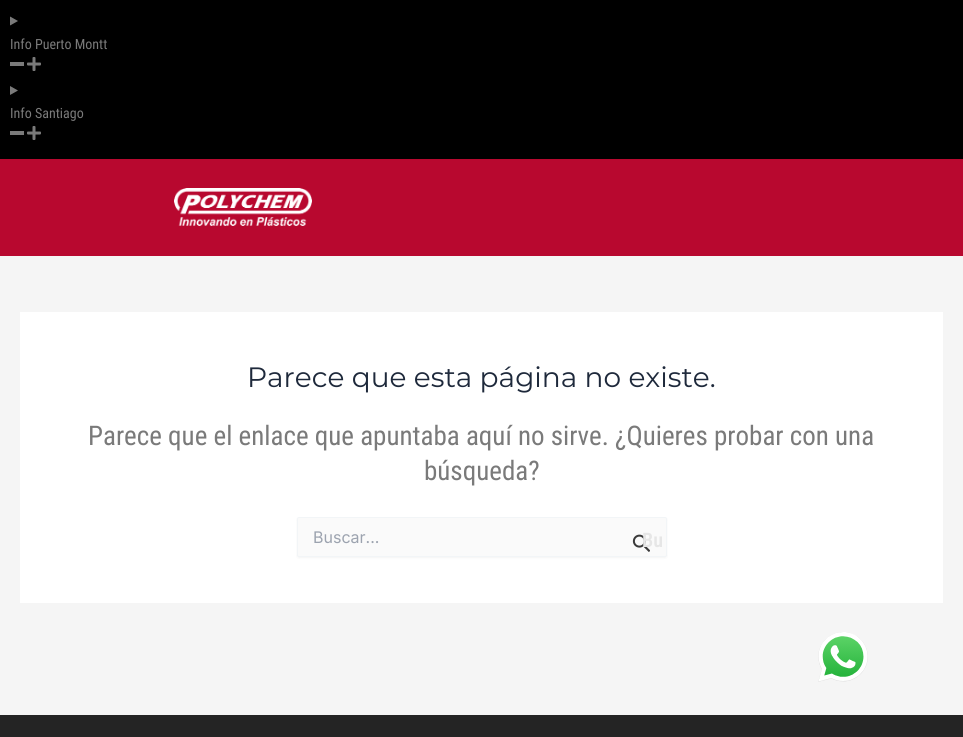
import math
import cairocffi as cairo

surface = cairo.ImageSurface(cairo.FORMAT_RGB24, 963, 737)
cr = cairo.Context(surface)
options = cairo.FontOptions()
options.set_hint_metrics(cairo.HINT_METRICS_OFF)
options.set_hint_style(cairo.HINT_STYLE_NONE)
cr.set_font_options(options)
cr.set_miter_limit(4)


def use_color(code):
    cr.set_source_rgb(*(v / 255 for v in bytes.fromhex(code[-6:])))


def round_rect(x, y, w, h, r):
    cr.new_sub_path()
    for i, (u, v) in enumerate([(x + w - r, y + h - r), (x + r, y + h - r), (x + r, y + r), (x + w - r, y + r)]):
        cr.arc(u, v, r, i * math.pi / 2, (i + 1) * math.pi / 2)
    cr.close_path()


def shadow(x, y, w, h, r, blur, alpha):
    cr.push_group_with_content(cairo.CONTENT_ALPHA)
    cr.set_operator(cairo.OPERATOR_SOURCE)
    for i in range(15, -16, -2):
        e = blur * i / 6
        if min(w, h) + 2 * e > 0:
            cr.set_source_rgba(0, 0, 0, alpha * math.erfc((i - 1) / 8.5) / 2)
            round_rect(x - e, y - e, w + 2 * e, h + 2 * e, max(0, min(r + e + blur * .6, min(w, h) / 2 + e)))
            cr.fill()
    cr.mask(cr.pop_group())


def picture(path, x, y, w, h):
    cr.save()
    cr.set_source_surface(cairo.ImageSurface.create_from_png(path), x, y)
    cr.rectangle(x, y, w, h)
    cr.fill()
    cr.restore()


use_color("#f5f5f5")
cr.paint()
use_color("#000000")
cr.rectangle(0, 0, 963, 159)
cr.fill()
use_color("#7a7a7a")
cr.new_path()
cr.move_to(10, 16.5)
cr.line_to(18, 21)
cr.line_to(10, 25.5)
cr.close_path()
cr.fill()
cr.select_font_face("Roboto Condensed")
cr.set_font_size(14)
cr.move_to(10, 49)
cr.show_text("Info Puerto Montt")
cr.rectangle(10, 62, 14, 4)
cr.fill()
picture("img1.png", 27, 57, 14, 14)
cr.new_path()
cr.move_to(10, 86)
cr.line_to(18, 90.5)
cr.line_to(10, 95)
cr.close_path()
cr.fill()
cr.move_to(10, 118)
cr.show_text("Info Santiago")
cr.rectangle(10, 131, 14, 4)
cr.fill()
picture("img1.png", 27, 126, 14, 14)
use_color("#b8082f")
cr.rectangle(0, 159, 963, 97)
cr.fill()
picture("img2.png", 174, 188, 138, 38)
use_color("#ffffff")
cr.rectangle(20, 312, 923, 291)
cr.fill()
cr.select_font_face("Montserrat")
cr.set_font_size(28)
use_color("#1e293b")
cr.move_to(247, 387)
cr.show_text("Parece que esta página no existe.")
cr.select_font_face("Roboto Condensed")
cr.set_font_size(27)
use_color("#7a7a7a")
cr.move_to(88, 445)
cr.show_text("Parece que el enlace que apuntaba aquí no sirve. ¿Quieres probar con una")
cr.move_to(424, 480)
cr.show_text("búsqueda?")
use_color("#000000")
shadow(297, 518, 370, 40, 2, 1, 0.05)
use_color("#fafafa")
round_rect(297.5, 517.5, 369, 39, 1.5)
cr.fill_preserve()
use_color("#f2f5f7")
cr.set_line_width(1)
cr.stroke()
cr.select_font_face("Inter")
cr.set_font_size(16)
use_color("#9ca3af")
cr.move_to(313, 543)
cr.show_text("Buscar...")
picture("img3.png", 632, 534, 18, 18)
cr.select_font_face("Roboto Condensed SemiBold")
cr.set_font_size(20)
use_color("#e6e6e6")
cr.move_to(642, 547)
cr.show_text("Bu")
use_color("#242424")
cr.rectangle(0, 715, 963, 22)
cr.fill()
picture("img4.png", 818, 632, 50, 50)
surface.write_to_png("result.png")
